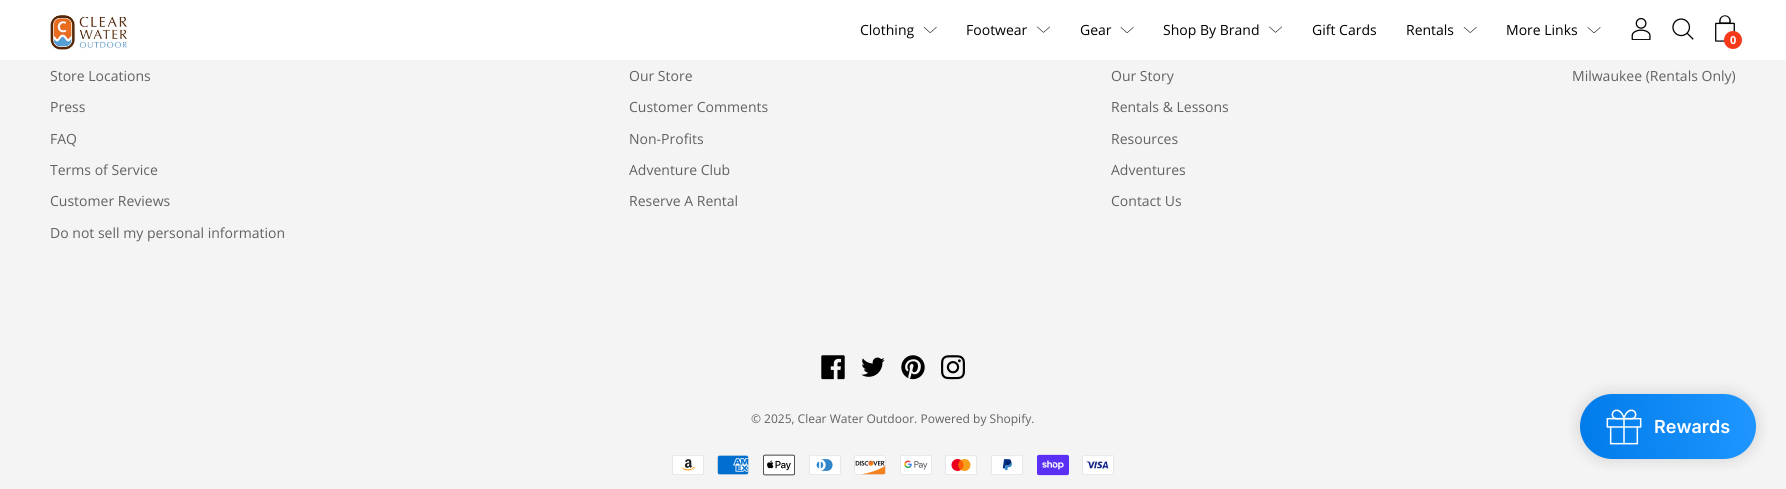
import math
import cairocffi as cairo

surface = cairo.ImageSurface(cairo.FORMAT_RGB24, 1786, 489)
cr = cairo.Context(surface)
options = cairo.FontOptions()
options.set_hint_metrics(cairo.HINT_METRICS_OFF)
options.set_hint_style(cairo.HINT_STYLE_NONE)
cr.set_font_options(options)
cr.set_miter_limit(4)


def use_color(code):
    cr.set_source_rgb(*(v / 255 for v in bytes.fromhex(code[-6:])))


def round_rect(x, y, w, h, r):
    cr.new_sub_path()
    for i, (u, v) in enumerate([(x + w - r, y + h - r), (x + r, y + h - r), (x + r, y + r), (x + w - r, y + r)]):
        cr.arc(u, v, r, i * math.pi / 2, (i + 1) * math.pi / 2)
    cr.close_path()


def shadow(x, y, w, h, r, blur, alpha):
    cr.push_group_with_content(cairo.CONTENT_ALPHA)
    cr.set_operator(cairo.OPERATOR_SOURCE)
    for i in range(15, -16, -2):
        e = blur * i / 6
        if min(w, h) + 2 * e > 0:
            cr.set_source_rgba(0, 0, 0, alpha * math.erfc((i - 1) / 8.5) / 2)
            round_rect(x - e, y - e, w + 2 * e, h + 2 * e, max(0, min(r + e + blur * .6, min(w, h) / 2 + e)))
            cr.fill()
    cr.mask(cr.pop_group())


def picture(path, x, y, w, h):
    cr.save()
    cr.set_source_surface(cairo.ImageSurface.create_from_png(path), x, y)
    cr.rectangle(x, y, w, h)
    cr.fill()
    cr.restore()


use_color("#f4f4f4")
cr.paint()
use_color("#ffffff")
cr.rectangle(0, 0, 1786, 60)
cr.fill()
picture("img1.png", 50, 15, 78, 35)
cr.select_font_face("Open Sans")
cr.set_font_size(14)
use_color("#000000")
cr.move_to(860, 35)
cr.show_text("Clothing")
picture("img2.png", 923, 27, 14, 6)
cr.move_to(966, 35)
cr.show_text("Footwear")
picture("img3.png", 1037, 26, 13, 7)
cr.move_to(1080, 35)
cr.show_text("Gear")
picture("img4.png", 1120, 27, 14, 6)
cr.move_to(1163, 35)
cr.show_text("Shop By Brand")
picture("img5.png", 1269, 26, 13, 7)
cr.move_to(1312, 35)
cr.show_text("Gift Cards")
cr.move_to(1406, 35)
cr.show_text("Rentals")
picture("img6.png", 1463, 26, 14, 7)
cr.move_to(1506, 35)
cr.show_text("More Links")
picture("img7.png", 1587, 27, 14, 6)
picture("img8.png", 1631, 18, 20, 22)
picture("img9.png", 1672, 18, 22, 22)
picture("img10.png", 1715, 15, 20, 27)
use_color("#f53919")
cr.arc(1733, 40, 9, 0, 2 * math.pi)
cr.fill()
cr.select_font_face("Open Sans", cairo.FONT_SLANT_NORMAL, cairo.FONT_WEIGHT_BOLD)
cr.set_font_size(11)
use_color("#ffffff")
cr.move_to(1730, 44)
cr.show_text("0")
cr.select_font_face("Open Sans")
cr.set_font_size(14)
use_color("#626262")
cr.move_to(50, 81)
cr.show_text("Store Locations")
cr.move_to(50, 112)
cr.show_text("Press")
cr.move_to(50, 144)
cr.show_text("FAQ")
cr.move_to(50, 175)
cr.show_text("Terms of Service")
cr.move_to(50, 206)
cr.show_text("Customer Reviews")
cr.move_to(50, 238)
cr.show_text("Do not sell my personal information")
cr.move_to(629, 81)
cr.show_text("Our Store")
cr.move_to(629, 112)
cr.show_text("Customer Comments")
cr.move_to(629, 144)
cr.show_text("Non-Profits")
cr.move_to(629, 175)
cr.show_text("Adventure Club")
cr.move_to(629, 206)
cr.show_text("Reserve A Rental")
cr.move_to(1111, 81)
cr.show_text("Our Story")
cr.move_to(1111, 112)
cr.show_text("Rentals & Lessons")
cr.move_to(1111, 144)
cr.show_text("Resources")
cr.move_to(1111, 175)
cr.show_text("Adventures")
cr.move_to(1111, 206)
cr.show_text("Contact Us")
cr.move_to(1572, 81)
cr.show_text("Milwaukee (Rentals Only)")
picture("img11.png", 821, 355, 24, 25)
picture("img12.png", 861, 357, 24, 20)
picture("img13.png", 901, 355, 24, 25)
picture("img14.png", 941, 355, 24, 25)
cr.set_font_size(12)
cr.move_to(751, 423)
cr.show_text("© 2025, Clear Water Outdoor. Powered by Shopify.")
picture("img15.png", 672, 455, 32, 20)
picture("img16.png", 717, 455, 32, 20)
picture("img17.png", 763, 454, 32, 22)
picture("img18.png", 809, 455, 32, 20)
picture("img19.png", 854, 455, 32, 20)
picture("img20.png", 900, 455, 32, 20)
picture("img21.png", 945, 455, 32, 20)
picture("img22.png", 991, 455, 32, 20)
picture("img23.png", 1037, 454, 32, 22)
picture("img24.png", 1082, 455, 32, 20)
use_color("#000000")
shadow(1580, 394, 176, 65, 32.5, 8, 0.15)
gradient = cairo.LinearGradient(1758, 417, 1578, 436)
gradient.add_color_stop_rgba(0.05, 0.118, 0.584, 1, 1)
gradient.add_color_stop_rgba(0.97, 0, 0.486, 0.918, 1)
cr.set_source(gradient)
round_rect(1580, 394, 176, 65, 32.5)
cr.fill()
picture("img25.png", 1606, 409, 36, 36)
cr.select_font_face("Inter SemiBold")
cr.set_font_size(18)
use_color("#ffffff")
cr.move_to(1654, 433)
cr.show_text("Rewards")
surface.write_to_png("result.png")
